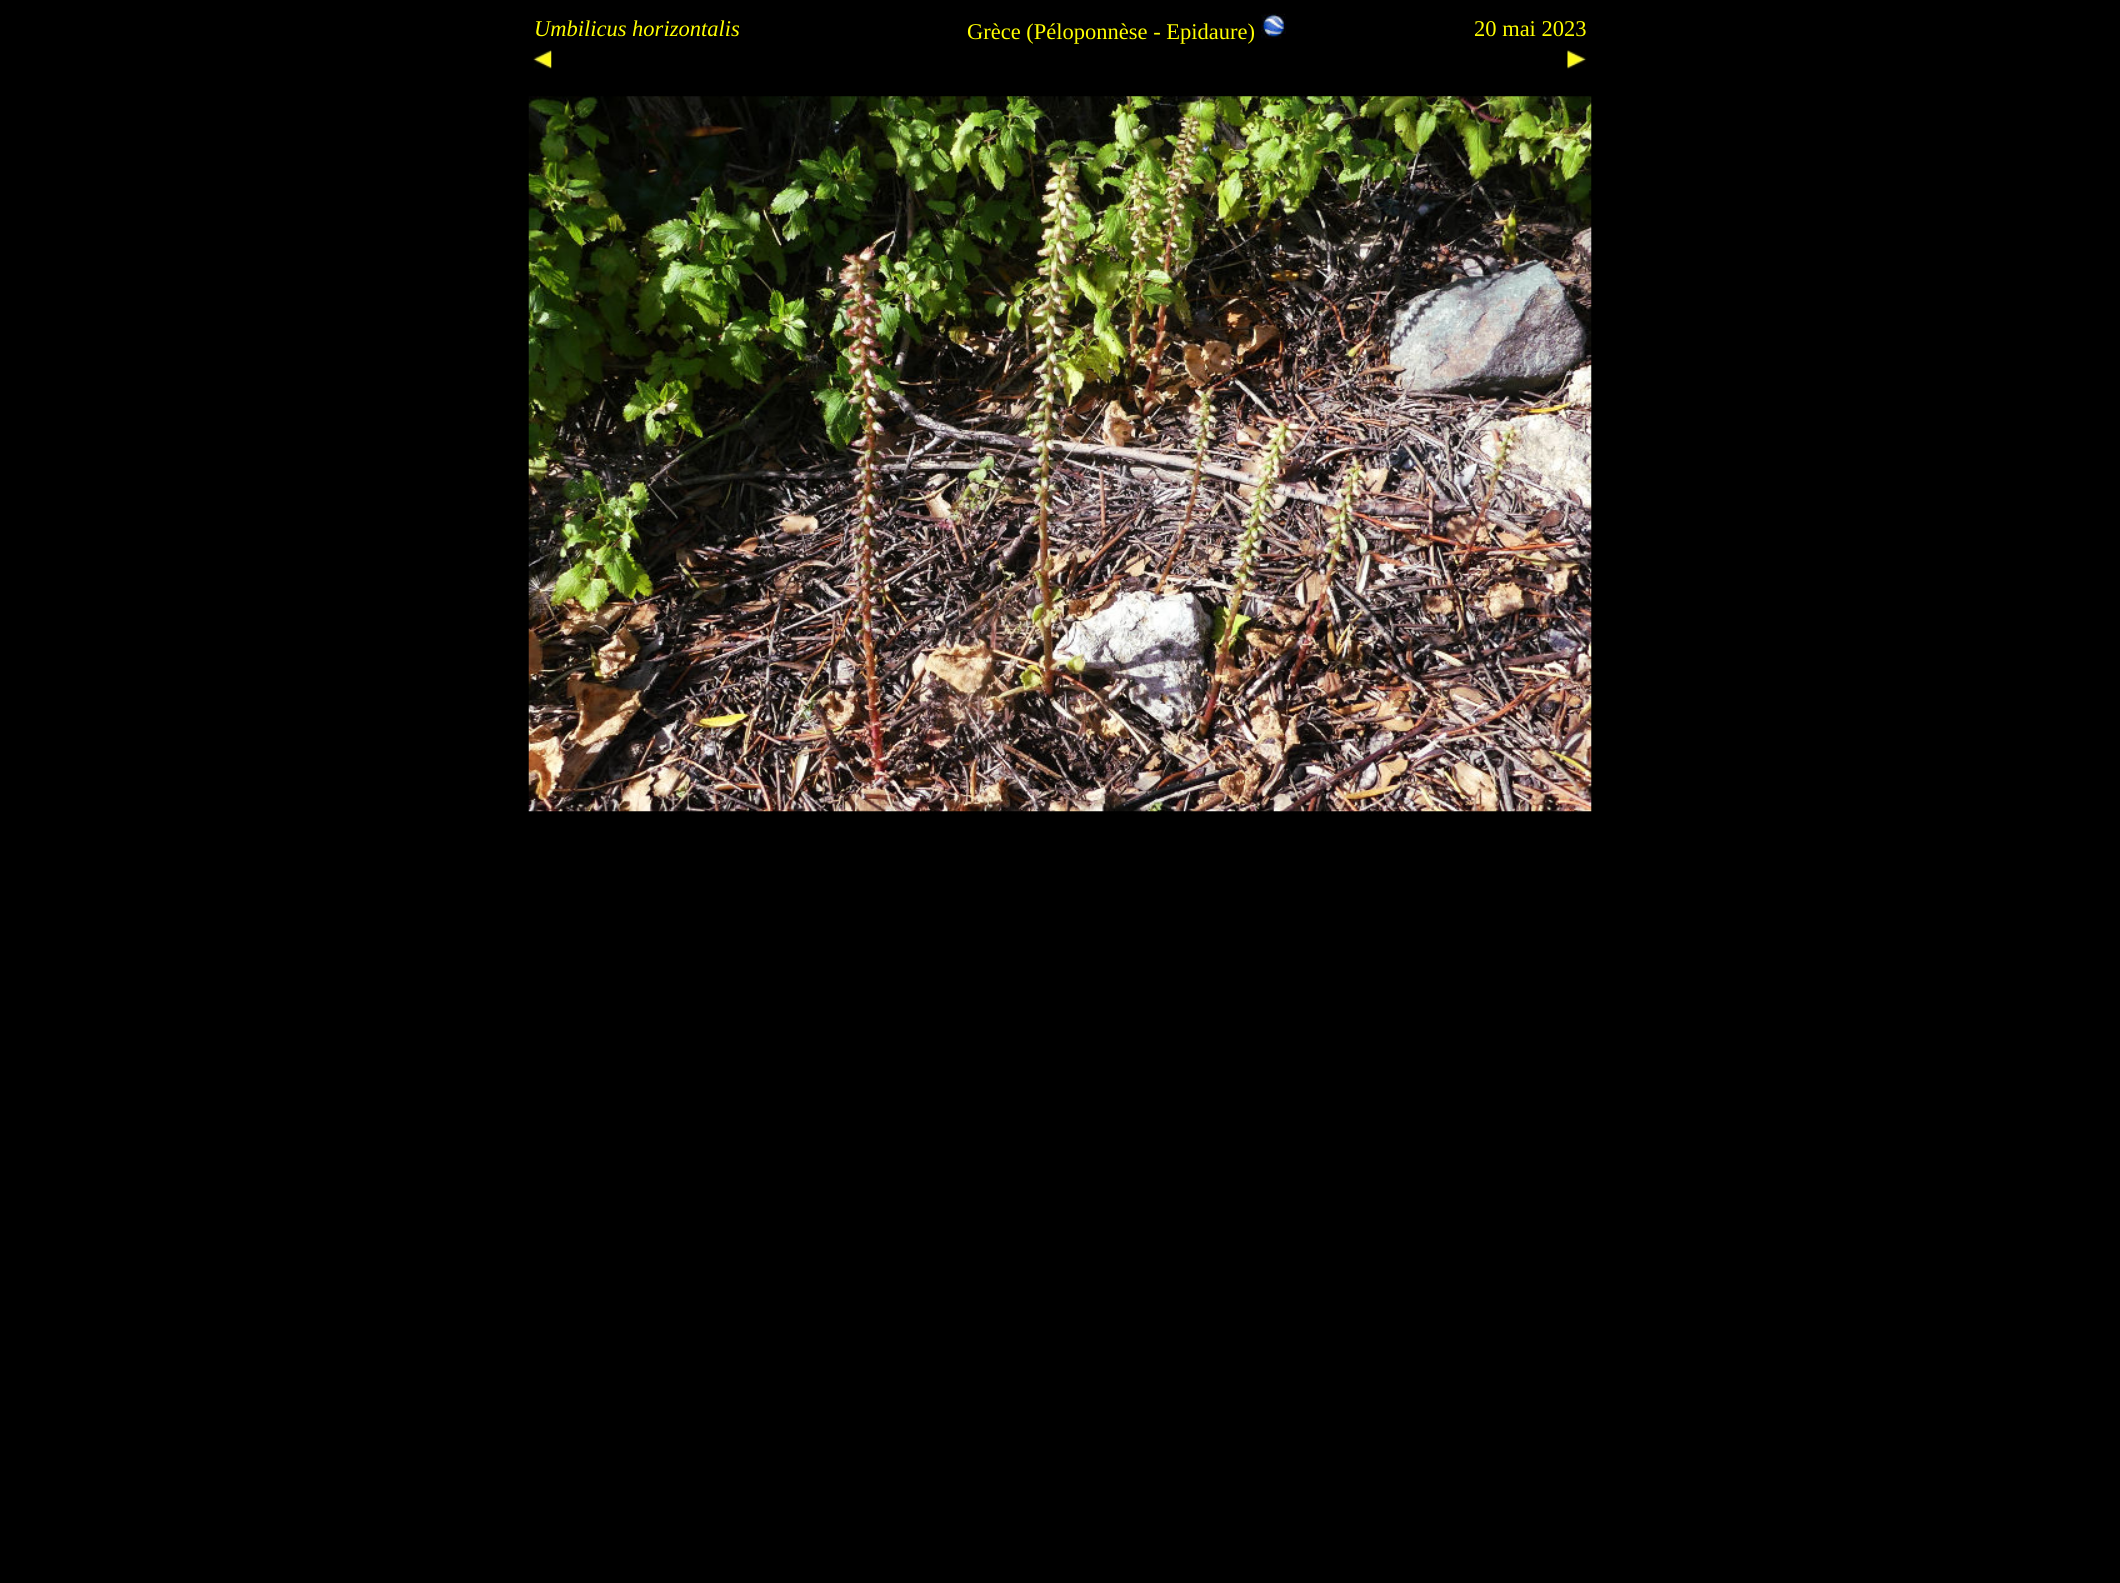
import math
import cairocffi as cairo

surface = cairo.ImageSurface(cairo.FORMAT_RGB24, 2120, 1583)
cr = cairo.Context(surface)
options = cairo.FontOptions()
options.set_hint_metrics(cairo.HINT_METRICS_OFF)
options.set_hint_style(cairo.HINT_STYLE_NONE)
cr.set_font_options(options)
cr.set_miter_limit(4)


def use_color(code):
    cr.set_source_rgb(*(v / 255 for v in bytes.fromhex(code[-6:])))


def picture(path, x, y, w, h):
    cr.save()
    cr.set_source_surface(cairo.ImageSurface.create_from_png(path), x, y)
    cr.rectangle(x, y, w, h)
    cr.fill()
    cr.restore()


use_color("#000000")
cr.paint()
cr.select_font_face("Liberation Serif", cairo.FONT_SLANT_ITALIC)
cr.set_font_size(22.5)
use_color("#ffff00")
cr.move_to(534, 36)
cr.show_text("Umbilicus horizontalis")
cr.select_font_face("Liberation Serif")
cr.move_to(967, 39)
cr.show_text("Grèce (Péloponnèse - Epidaure)")
picture("img1.png", 1261, 13, 25, 26)
cr.move_to(1474, 36)
cr.show_text("20 mai 2023")
picture("img2.png", 533, 50, 19, 19)
picture("img3.png", 1567, 50, 20, 19)
picture("img4.png", 528, 96, 1064, 716)
surface.write_to_png("result.png")
